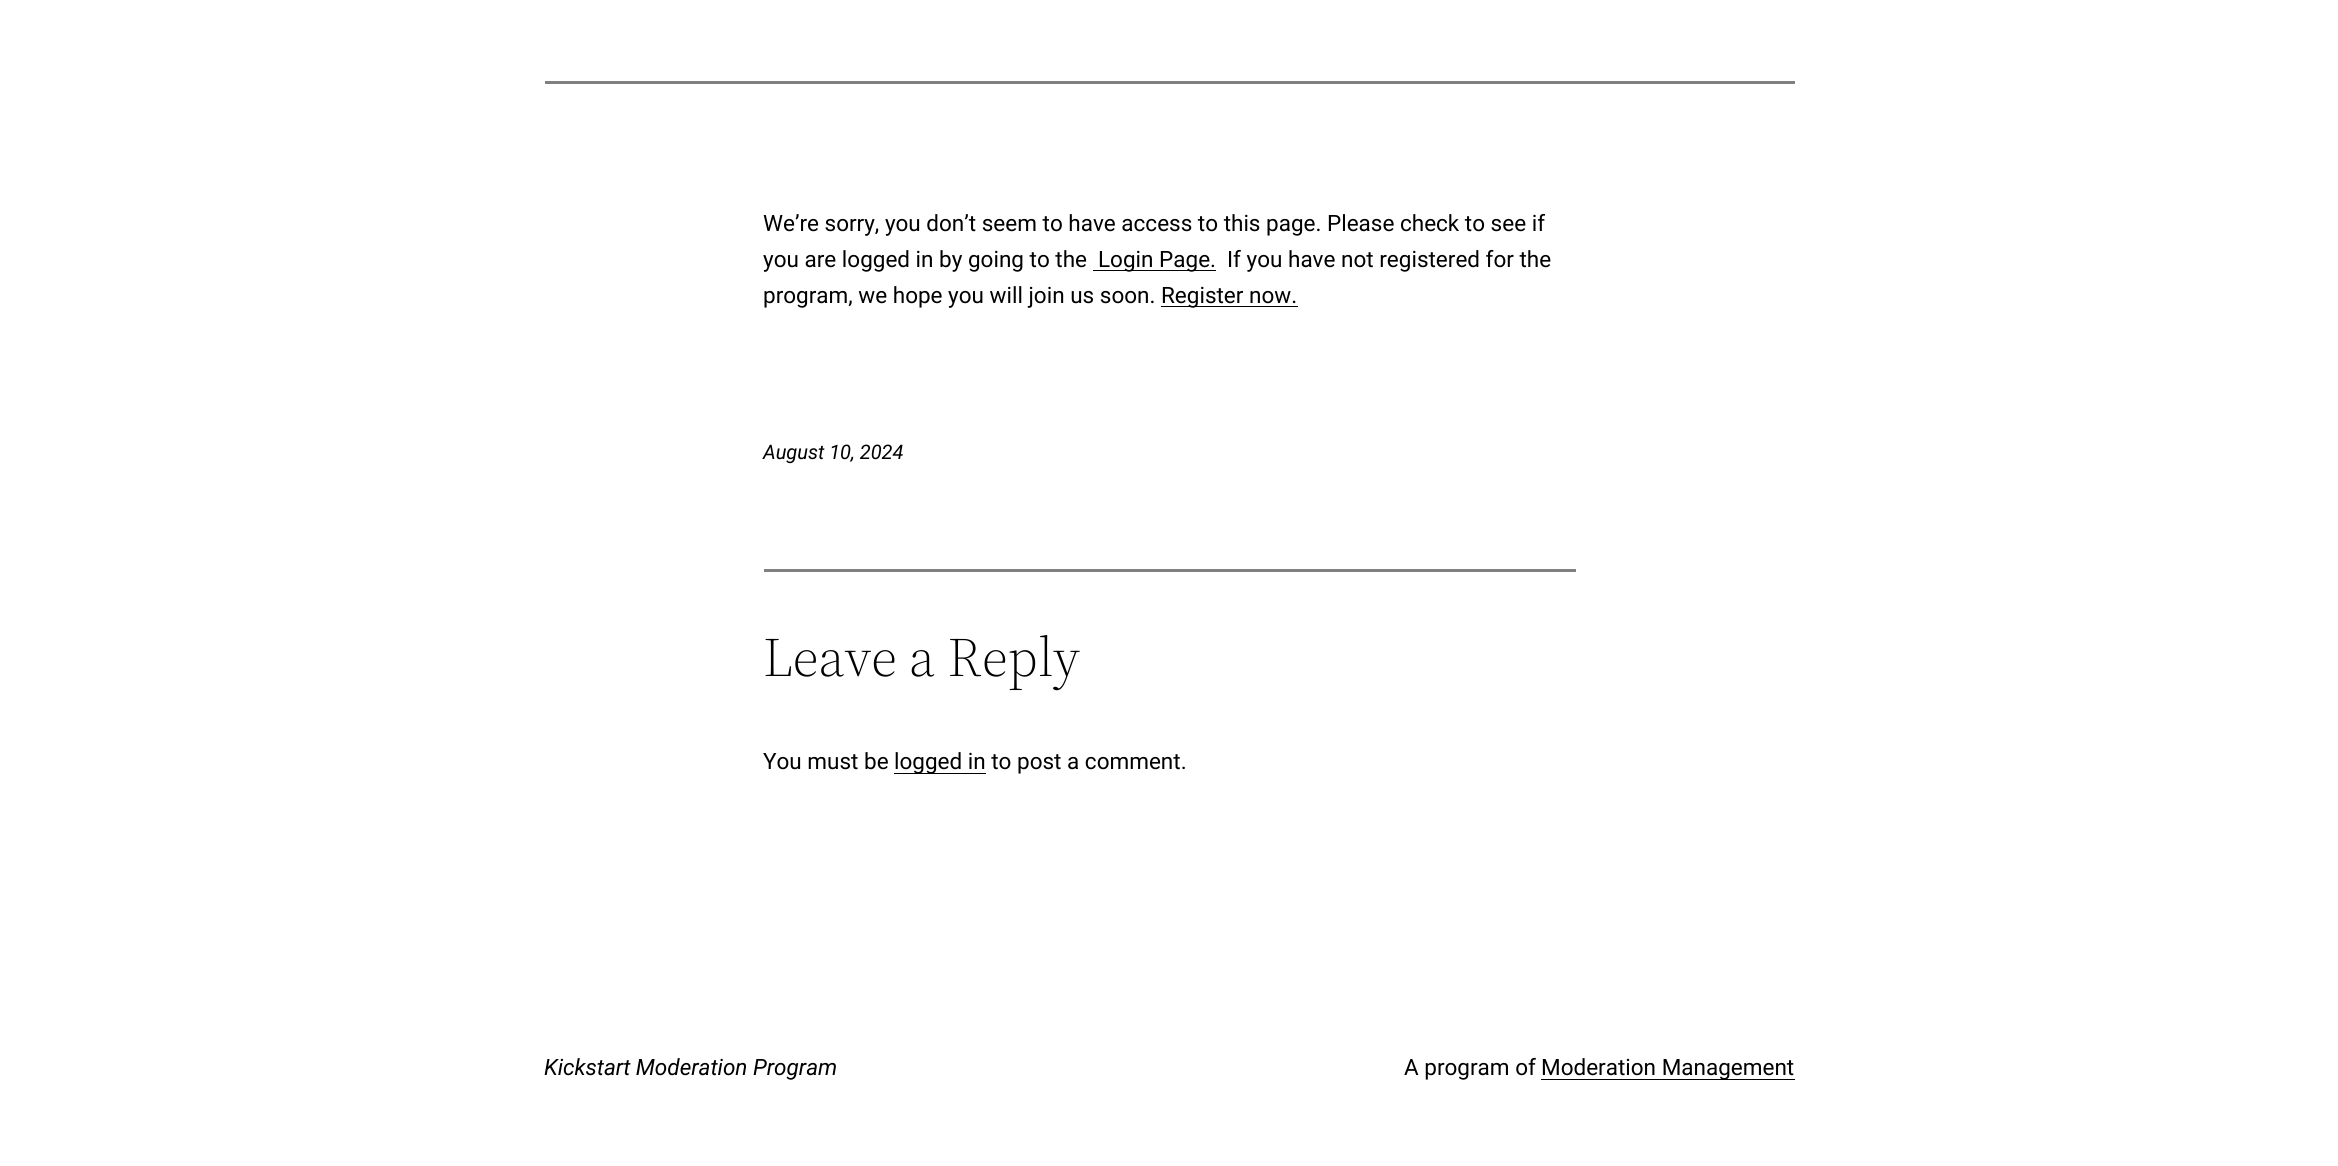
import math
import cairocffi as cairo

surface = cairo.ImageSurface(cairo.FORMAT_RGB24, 2338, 1166)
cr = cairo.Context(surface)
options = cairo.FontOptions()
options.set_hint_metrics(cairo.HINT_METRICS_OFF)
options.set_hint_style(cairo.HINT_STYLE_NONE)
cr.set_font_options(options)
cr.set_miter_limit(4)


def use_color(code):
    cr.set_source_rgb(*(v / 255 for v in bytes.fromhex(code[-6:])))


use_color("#ffffff")
cr.paint()
use_color("#808080")
cr.rectangle(545, 81, 1250, 3)
cr.fill()
cr.select_font_face("Roboto")
cr.set_font_size(22.5)
use_color("#000000")
cr.move_to(763, 231)
cr.show_text("We’re sorry, you don’t seem to have access to this page. Please check to see if")
cr.move_to(763, 267)
cr.show_text("you are logged in by going to the")
cr.rectangle(1093, 270, 123, 1)
cr.fill()
cr.move_to(1098, 267)
cr.show_text("Login Page.")
cr.move_to(1227, 267)
cr.show_text("If you have not registered for the")
cr.move_to(763, 303)
cr.show_text("program, we hope you will join us soon.")
cr.rectangle(1161, 306, 137, 1)
cr.fill()
cr.move_to(1161, 303)
cr.show_text("Register now.")
cr.select_font_face("Roboto", cairo.FONT_SLANT_ITALIC)
cr.set_font_size(20)
cr.move_to(763, 459)
cr.show_text("August 10, 2024")
use_color("#808080")
cr.rectangle(764, 569, 812, 3)
cr.fill()
cr.select_font_face("Source Serif 4 Light")
cr.set_font_size(55)
use_color("#000000")
cr.move_to(763, 676)
cr.show_text("Leave a Reply")
cr.select_font_face("Roboto")
cr.set_font_size(22.5)
cr.move_to(763, 769)
cr.show_text("You must be")
cr.rectangle(894, 773, 92, 1)
cr.fill()
cr.move_to(894, 769)
cr.show_text("logged in to post a comment.")
cr.select_font_face("Roboto", cairo.FONT_SLANT_ITALIC)
cr.move_to(544, 1075)
cr.show_text("Kickstart Moderation Program")
cr.select_font_face("Roboto")
cr.move_to(1404, 1075)
cr.show_text("A program of")
cr.rectangle(1541, 1079, 254, 1)
cr.fill()
cr.move_to(1541, 1075)
cr.show_text("Moderation Management")
surface.write_to_png("result.png")
